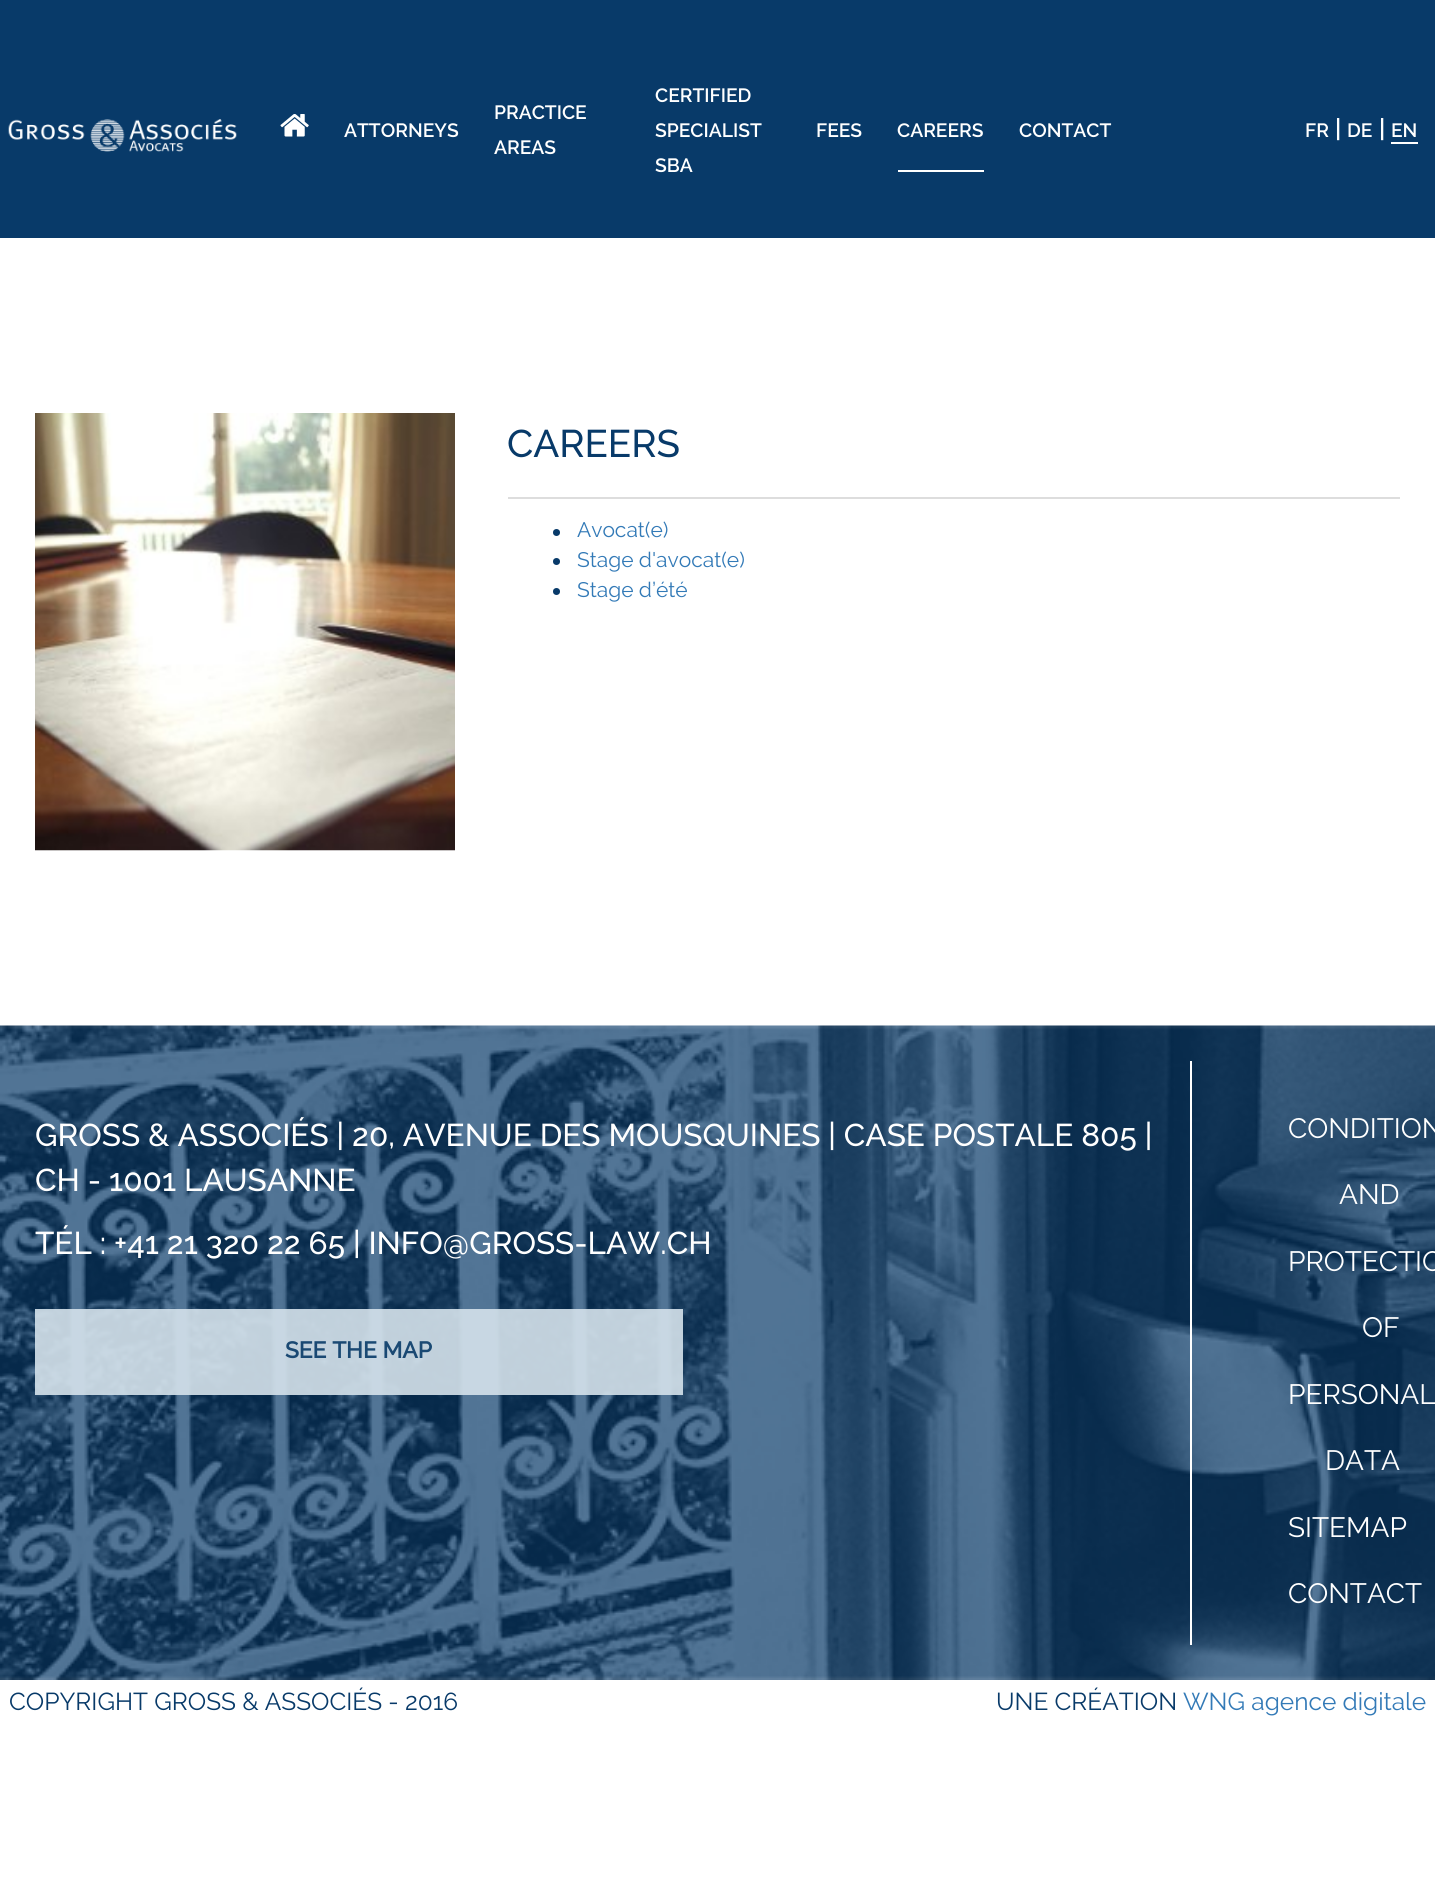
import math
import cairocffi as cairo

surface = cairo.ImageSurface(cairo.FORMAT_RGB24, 1435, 1896)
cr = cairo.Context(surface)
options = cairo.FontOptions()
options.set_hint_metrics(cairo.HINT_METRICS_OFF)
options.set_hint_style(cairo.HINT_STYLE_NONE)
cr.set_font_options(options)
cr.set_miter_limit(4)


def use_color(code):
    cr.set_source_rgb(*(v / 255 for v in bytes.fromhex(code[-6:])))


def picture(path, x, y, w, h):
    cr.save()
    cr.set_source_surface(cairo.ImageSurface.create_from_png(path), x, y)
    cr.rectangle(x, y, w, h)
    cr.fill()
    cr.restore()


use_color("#ffffff")
cr.paint()
use_color("#083a69")
cr.rectangle(0, 0, 1435, 238)
cr.fill()
picture("img1.png", 8, 119, 229, 33)
picture("img2.png", 280, 114, 29, 23)
cr.select_font_face("Raleway SemiBold")
cr.set_font_size(19.25)
use_color("#ffffff")
cr.move_to(344, 137)
cr.show_text("ATTORNEYS")
cr.move_to(494, 119)
cr.show_text("PRACTICE")
cr.move_to(494, 154)
cr.show_text("AREAS")
cr.move_to(655, 102)
cr.show_text("CERTIFIED")
cr.move_to(655, 137)
cr.show_text("SPECIALIST")
cr.move_to(655, 172)
cr.show_text("SBA")
cr.move_to(816, 137)
cr.show_text("FEES")
cr.rectangle(898, 170, 86, 2)
cr.fill()
cr.move_to(897, 137)
cr.show_text("CAREERS")
cr.move_to(1019, 137)
cr.show_text("CONTACT")
cr.move_to(1305, 137)
cr.show_text("FR")
cr.set_font_size(24.5)
cr.move_to(1335, 137)
cr.show_text("|")
cr.set_font_size(19.25)
cr.move_to(1347, 137)
cr.show_text("DE")
cr.set_font_size(24.5)
cr.move_to(1379, 137)
cr.show_text("|")
cr.set_font_size(19.25)
cr.move_to(1391, 137)
cr.show_text("EN")
cr.rectangle(1391, 142, 27, 2)
cr.fill()
picture("img3.png", 35, 413, 420, 438)
use_color("#dddddd")
cr.rectangle(508, 497, 892, 2)
cr.fill()
cr.select_font_face("Raleway Medium")
cr.set_font_size(38.5)
use_color("#083a69")
cr.move_to(507, 457)
cr.show_text("CAREERS")
cr.new_path()
cr.arc(556.5, 532.5, 3.5, 0, 2 * math.pi)
cr.fill()
cr.select_font_face("Raleway")
cr.set_font_size(21)
use_color("#337ab7")
cr.move_to(577, 537)
cr.show_text("Avocat(e)")
use_color("#083a69")
cr.new_path()
cr.arc(556.5, 561.5, 3.5, 0, 2 * math.pi)
cr.fill()
use_color("#337ab7")
cr.move_to(577, 567)
cr.show_text("Stage d'avocat(e)")
use_color("#083a69")
cr.new_path()
cr.arc(556.5, 591.5, 3.5, 0, 2 * math.pi)
cr.fill()
use_color("#337ab7")
cr.move_to(577, 597)
cr.show_text("Stage d’été")
picture("img4.png", 0, 1025, 1435, 655)
cr.select_font_face("Raleway Medium")
cr.set_font_size(31.5)
use_color("#ffffff")
cr.move_to(35, 1146)
cr.show_text("GROSS & ASSOCIÉS | 20, AVENUE DES MOUSQUINES | CASE POSTALE 805 |")
cr.move_to(35, 1191)
cr.show_text("CH - 1001 LAUSANNE")
cr.move_to(35, 1254)
cr.show_text("TÉL : +41 21 320 22 65 | INFO@GROSS-LAW.CH")
cr.set_source_rgba(0.835, 0.886, 0.922, 0.9)
cr.rectangle(35, 1309, 648, 86)
cr.fill()
cr.select_font_face("Raleway", cairo.FONT_SLANT_NORMAL, cairo.FONT_WEIGHT_BOLD)
cr.set_font_size(22.75)
use_color("#1a4973")
cr.move_to(285, 1358)
cr.show_text("SEE THE MAP")
use_color("#ffffff")
cr.rectangle(1190, 1061, 2, 584)
cr.fill()
cr.select_font_face("Raleway")
cr.set_font_size(28)
cr.move_to(1288, 1138)
cr.show_text("CONDITION")
cr.move_to(1339, 1204)
cr.show_text("AND")
cr.move_to(1288, 1271)
cr.show_text("PROTECTIO")
cr.move_to(1362, 1337)
cr.show_text("OF")
cr.move_to(1288, 1404)
cr.show_text("PERSONAL")
cr.move_to(1325, 1470)
cr.show_text("DATA")
cr.move_to(1288, 1537)
cr.show_text("SITEMAP")
cr.move_to(1288, 1603)
cr.show_text("CONTACT")
cr.set_font_size(24.5)
use_color("#083a69")
cr.move_to(9, 1710)
cr.show_text("COPYRIGHT GROSS & ASSOCIÉS - 2016")
cr.move_to(996, 1710)
cr.show_text("UNE CRÉATION")
use_color("#337ab7")
cr.move_to(1183, 1710)
cr.show_text("WNG agence digitale")
surface.write_to_png("result.png")
